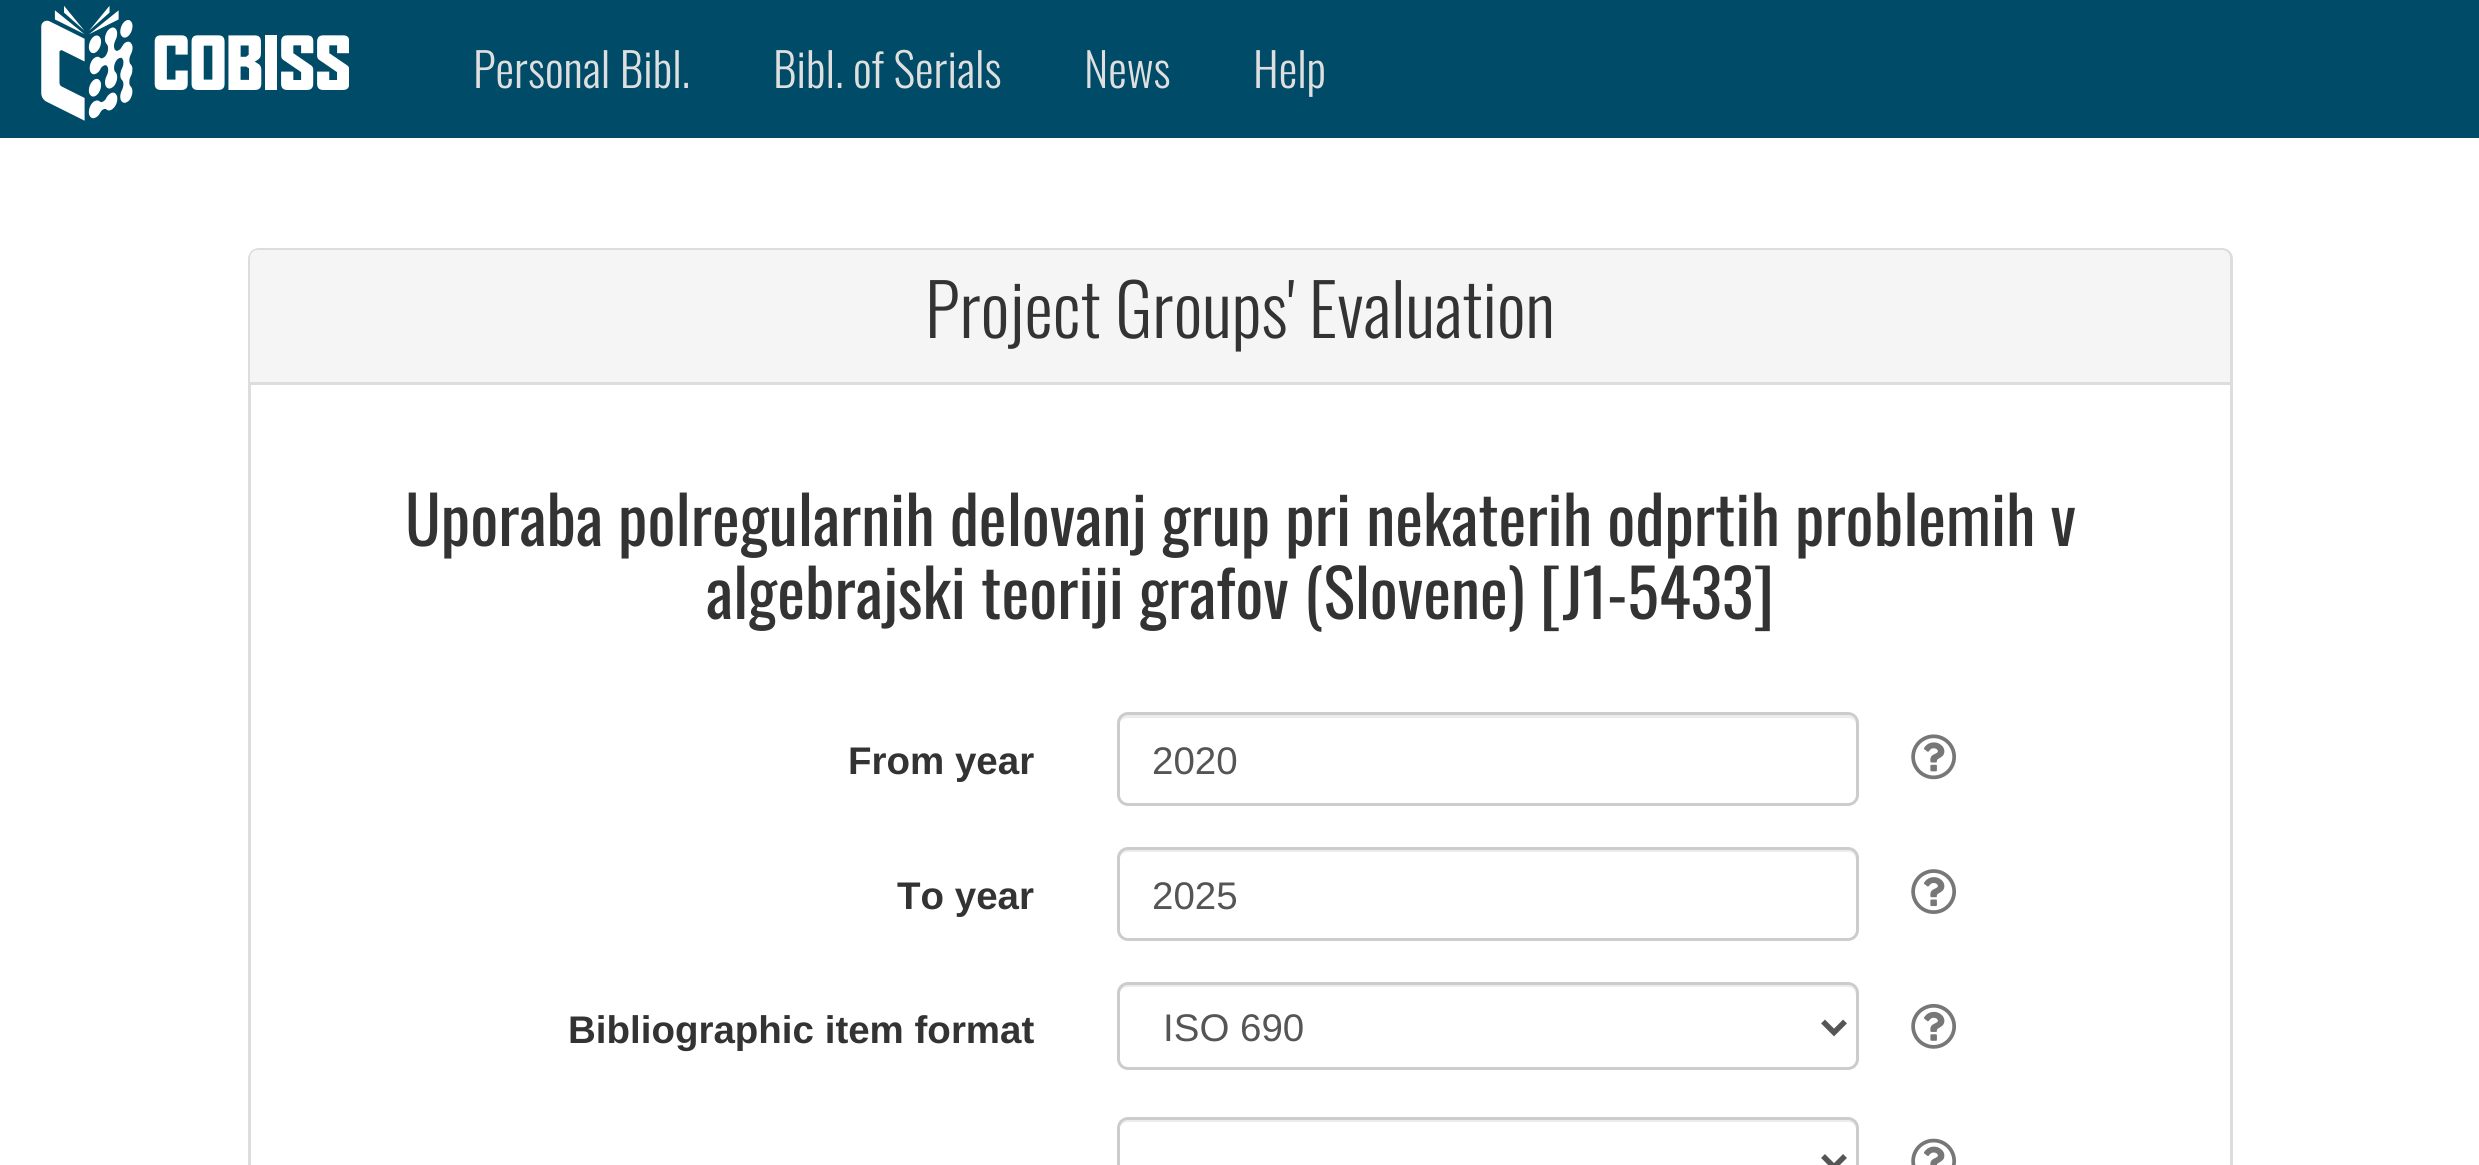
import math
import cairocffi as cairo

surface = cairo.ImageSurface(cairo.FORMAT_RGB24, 2479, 1165)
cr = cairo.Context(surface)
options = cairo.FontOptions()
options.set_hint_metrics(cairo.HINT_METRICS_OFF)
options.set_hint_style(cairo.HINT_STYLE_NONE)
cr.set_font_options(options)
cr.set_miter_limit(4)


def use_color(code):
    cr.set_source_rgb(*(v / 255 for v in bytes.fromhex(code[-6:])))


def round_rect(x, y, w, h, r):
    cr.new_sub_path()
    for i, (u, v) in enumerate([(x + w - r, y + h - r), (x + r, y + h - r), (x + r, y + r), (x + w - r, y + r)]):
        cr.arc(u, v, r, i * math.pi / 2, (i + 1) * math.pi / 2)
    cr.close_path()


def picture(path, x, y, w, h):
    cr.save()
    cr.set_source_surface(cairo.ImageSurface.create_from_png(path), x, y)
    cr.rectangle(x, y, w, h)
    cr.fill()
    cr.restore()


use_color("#ffffff")
cr.paint()
use_color("#004b67")
cr.rectangle(0, 0, 2479, 138)
cr.fill()
picture("img1.png", 41, 6, 308, 115)
cr.select_font_face("Oswald Light")
cr.set_font_size(46.75)
use_color("#dfdfdf")
cr.move_to(473, 88)
cr.show_text("Personal Bibl.")
cr.move_to(773, 88)
cr.show_text("Bibl. of Serials")
cr.move_to(1084, 88)
cr.show_text("News")
cr.move_to(1253, 88)
cr.show_text("Help")
round_rect(249.5, 249.5, 1982, 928, 9.5)
use_color("#dddddd")
cr.set_line_width(3)
cr.stroke()
use_color("#f5f5f5")
cr.new_path()
cr.move_to(258, 250)
cr.line_to(2222, 250)
cr.curve_to(2226.5, 250, 2230, 253.5, 2230, 258)
cr.line_to(2230, 385)
cr.line_to(250, 385)
cr.line_to(250, 258)
cr.curve_to(250, 253.5, 253.5, 250, 258, 250)
cr.close_path()
cr.fill()
use_color("#dddddd")
cr.rectangle(250, 382, 1980, 3)
cr.fill()
cr.set_font_size(71.5)
use_color("#333333")
cr.move_to(925, 338)
cr.show_text("Project Groups' Evaluation")
cr.select_font_face("Oswald")
cr.set_font_size(66)
cr.move_to(405, 546)
cr.show_text("Uporaba polregularnih delovanj grup pri nekaterih odprtih problemih v")
cr.move_to(706, 619)
cr.show_text("algebrajski teoriji grafov (Slovene) [J1-5433]")
cr.select_font_face("Liberation Sans", cairo.FONT_SLANT_NORMAL, cairo.FONT_WEIGHT_BOLD)
cr.set_font_size(38.5)
cr.move_to(848, 774)
cr.show_text("From year")
use_color("#ececec")
cr.new_path()
cr.move_to(1128, 718)
cr.line_to(1848, 718)
cr.curve_to(1853, 718, 1856, 721, 1856, 726)
cr.line_to(1856, 723)
cr.curve_to(1856, 719, 1852, 715, 1848, 715)
cr.line_to(1127, 715)
cr.curve_to(1123, 715, 1119, 719, 1119, 723)
cr.line_to(1119, 726)
cr.curve_to(1119, 721, 1123, 718, 1128, 718)
cr.close_path()
cr.fill()
round_rect(1118.5, 713.5, 739, 91, 9.5)
use_color("#cccccc")
cr.stroke()
cr.select_font_face("Liberation Sans")
use_color("#555555")
cr.move_to(1152, 774)
cr.show_text("2020")
picture("img2.png", 1911, 734, 45, 46)
cr.select_font_face("Liberation Sans", cairo.FONT_SLANT_NORMAL, cairo.FONT_WEIGHT_BOLD)
use_color("#333333")
cr.move_to(897, 909)
cr.show_text("To year")
use_color("#ececec")
cr.new_path()
cr.move_to(1128, 852)
cr.line_to(1848, 852)
cr.curve_to(1853, 852, 1856, 856, 1856, 861)
cr.line_to(1856, 858)
cr.curve_to(1856, 854, 1852, 850, 1848, 850)
cr.line_to(1127, 850)
cr.curve_to(1123, 850, 1119, 854, 1119, 858)
cr.line_to(1119, 861)
cr.curve_to(1119, 856, 1123, 852, 1128, 852)
cr.close_path()
cr.fill()
round_rect(1118.5, 848.5, 739, 91, 9.5)
use_color("#cccccc")
cr.stroke()
cr.select_font_face("Liberation Sans")
use_color("#555555")
cr.move_to(1152, 909)
cr.show_text("2025")
picture("img3.png", 1911, 869, 45, 45)
cr.select_font_face("Liberation Sans", cairo.FONT_SLANT_NORMAL, cairo.FONT_WEIGHT_BOLD)
use_color("#333333")
cr.move_to(568, 1043)
cr.show_text("Bibliographic item format")
use_color("#ececec")
cr.new_path()
cr.move_to(1128, 987)
cr.line_to(1848, 987)
cr.curve_to(1853, 987, 1856, 991, 1856, 996)
cr.line_to(1856, 993)
cr.curve_to(1856, 989, 1852, 985, 1848, 985)
cr.line_to(1127, 985)
cr.curve_to(1123, 985, 1119, 989, 1119, 993)
cr.line_to(1119, 996)
cr.curve_to(1119, 991, 1123, 987, 1128, 987)
cr.close_path()
cr.fill()
round_rect(1118.5, 983.5, 739, 85, 9.5)
use_color("#cccccc")
cr.stroke()
cr.new_path()
cr.move_to(1823, 1021.5)
cr.line_to(1834, 1032.5)
cr.line_to(1845, 1021.5)
use_color("#555555")
cr.set_line_width(5.5)
cr.stroke()
cr.select_font_face("Liberation Sans")
cr.move_to(1163, 1041)
cr.show_text("ISO 690")
picture("img4.png", 1911, 1003, 45, 46)
use_color("#ececec")
cr.new_path()
cr.move_to(1128, 1122)
cr.line_to(1848, 1122)
cr.curve_to(1853, 1122, 1856, 1126, 1856, 1130)
cr.line_to(1856, 1127)
cr.curve_to(1856, 1123, 1852, 1119, 1848, 1119)
cr.line_to(1127, 1119)
cr.curve_to(1123, 1119, 1119, 1123, 1119, 1127)
cr.line_to(1119, 1130)
cr.curve_to(1119, 1126, 1123, 1122, 1128, 1122)
cr.close_path()
cr.fill()
round_rect(1118.5, 1118.5, 739, 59, 9.5)
use_color("#cccccc")
cr.set_line_width(3)
cr.stroke()
cr.new_path()
cr.move_to(1823, 1156)
cr.line_to(1834, 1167)
cr.line_to(1845, 1156)
use_color("#555555")
cr.set_line_width(5.5)
cr.stroke()
picture("img5.png", 1911, 1138, 45, 27)
surface.write_to_png("result.png")
